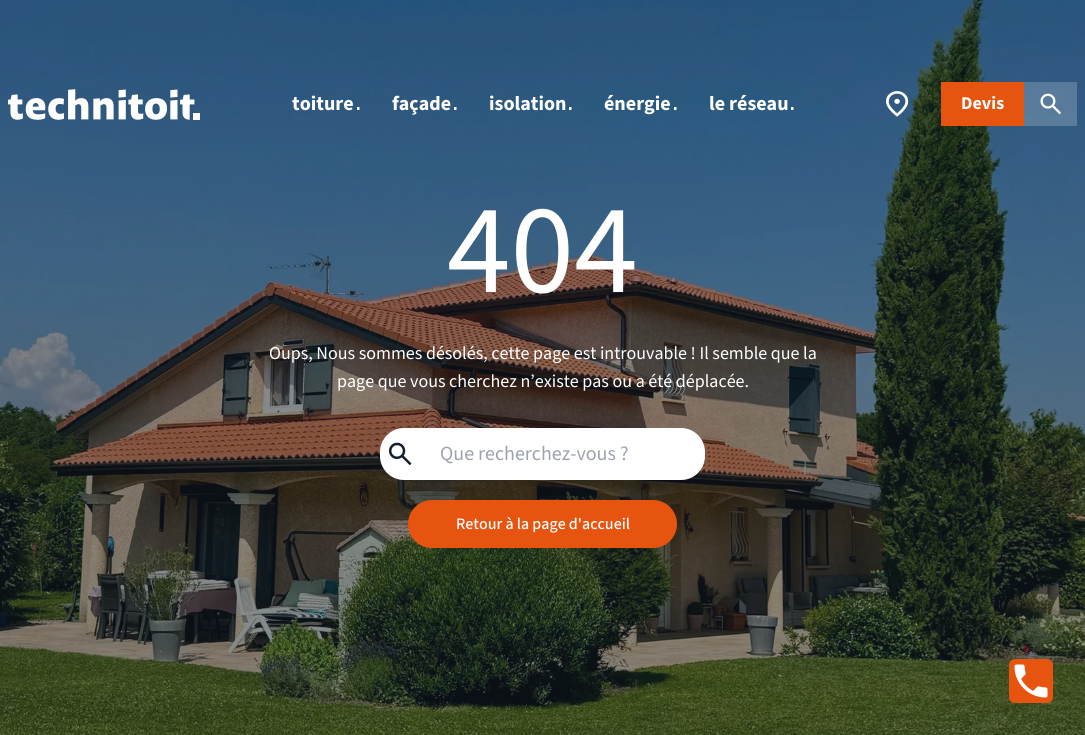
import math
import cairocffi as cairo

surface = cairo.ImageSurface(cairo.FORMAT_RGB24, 1085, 735)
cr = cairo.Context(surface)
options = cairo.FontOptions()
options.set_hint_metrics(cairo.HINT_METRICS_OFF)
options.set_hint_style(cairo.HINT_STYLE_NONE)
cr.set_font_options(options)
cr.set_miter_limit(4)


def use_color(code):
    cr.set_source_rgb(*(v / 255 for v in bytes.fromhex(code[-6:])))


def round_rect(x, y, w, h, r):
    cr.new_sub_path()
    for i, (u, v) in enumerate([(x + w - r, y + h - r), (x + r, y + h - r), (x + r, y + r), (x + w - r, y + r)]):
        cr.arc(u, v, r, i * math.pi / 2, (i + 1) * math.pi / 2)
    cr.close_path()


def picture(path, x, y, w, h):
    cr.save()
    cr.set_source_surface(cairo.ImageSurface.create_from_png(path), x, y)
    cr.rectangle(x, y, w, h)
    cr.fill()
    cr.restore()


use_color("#ffffff")
cr.paint()
picture("img4.png", 0, 0, 1085, 735)
picture("img1.png", 8, 89, 192, 31)
cr.select_font_face("Source Sans 3", cairo.FONT_SLANT_NORMAL, cairo.FONT_WEIGHT_BOLD)
cr.set_font_size(20)
use_color("#ffffff")
cr.move_to(292, 110)
cr.show_text("toiture")
cr.new_path()
cr.move_to(359.5, 107)
cr.line_to(357, 107)
cr.line_to(357, 110)
cr.line_to(359.5, 110)
cr.close_path()
cr.fill()
cr.move_to(392, 110)
cr.show_text("façade")
cr.new_path()
cr.move_to(456.5, 107)
cr.line_to(454, 107)
cr.line_to(454, 110)
cr.line_to(456.5, 110)
cr.close_path()
cr.fill()
cr.move_to(489, 110)
cr.show_text("isolation")
cr.new_path()
cr.move_to(571.5, 107)
cr.line_to(569, 107)
cr.line_to(569, 110)
cr.line_to(571.5, 110)
cr.close_path()
cr.fill()
cr.move_to(604, 110)
cr.show_text("énergie")
cr.new_path()
cr.move_to(676.5, 107)
cr.line_to(674, 107)
cr.line_to(674, 110)
cr.line_to(676.5, 110)
cr.close_path()
cr.fill()
cr.move_to(709, 110)
cr.show_text("le réseau")
cr.new_path()
cr.move_to(793.5, 107)
cr.line_to(791, 107)
cr.line_to(791, 110)
cr.line_to(793.5, 110)
cr.close_path()
cr.fill()
picture("img2.png", 886, 91, 23, 26)
use_color("#e7540f")
cr.rectangle(941, 82, 83, 44)
cr.fill()
cr.set_font_size(18)
use_color("#ffffff")
cr.move_to(961, 109)
cr.show_text("Devis")
cr.set_source_rgba(1, 1, 1, 0.2)
cr.rectangle(1024, 82, 53, 44)
cr.fill()
picture("img3.png", 1040, 93, 21, 22)
cr.select_font_face("Source Sans 3")
cr.set_font_size(128)
use_color("#ffffff")
cr.move_to(447, 292)
cr.show_text("404")
cr.set_font_size(18)
cr.move_to(269, 359)
cr.show_text("Oups, Nous sommes désolés, cette page est introuvable ! Il semble que la")
cr.move_to(337, 387)
cr.show_text("page que vous cherchez n’existe pas ou a été déplacée.")
round_rect(380, 428, 325, 52, 24)
cr.fill()
picture("img5.png", 389, 442, 23, 24)
cr.set_font_size(20)
use_color("#9ca3af")
cr.move_to(440, 460)
cr.show_text("Que recherchez-vous ?")
use_color("#e7540f")
round_rect(408, 500, 269, 48, 24)
cr.fill()
cr.select_font_face("Source Sans 3 Medium")
cr.set_font_size(16)
use_color("#ffffff")
cr.move_to(456, 529)
cr.show_text("Retour à la page d'accueil")
use_color("#e7540f")
round_rect(1009, 659, 44, 44, 6)
cr.fill()
picture("img6.png", 1014, 664, 34, 34)
surface.write_to_png("result.png")
